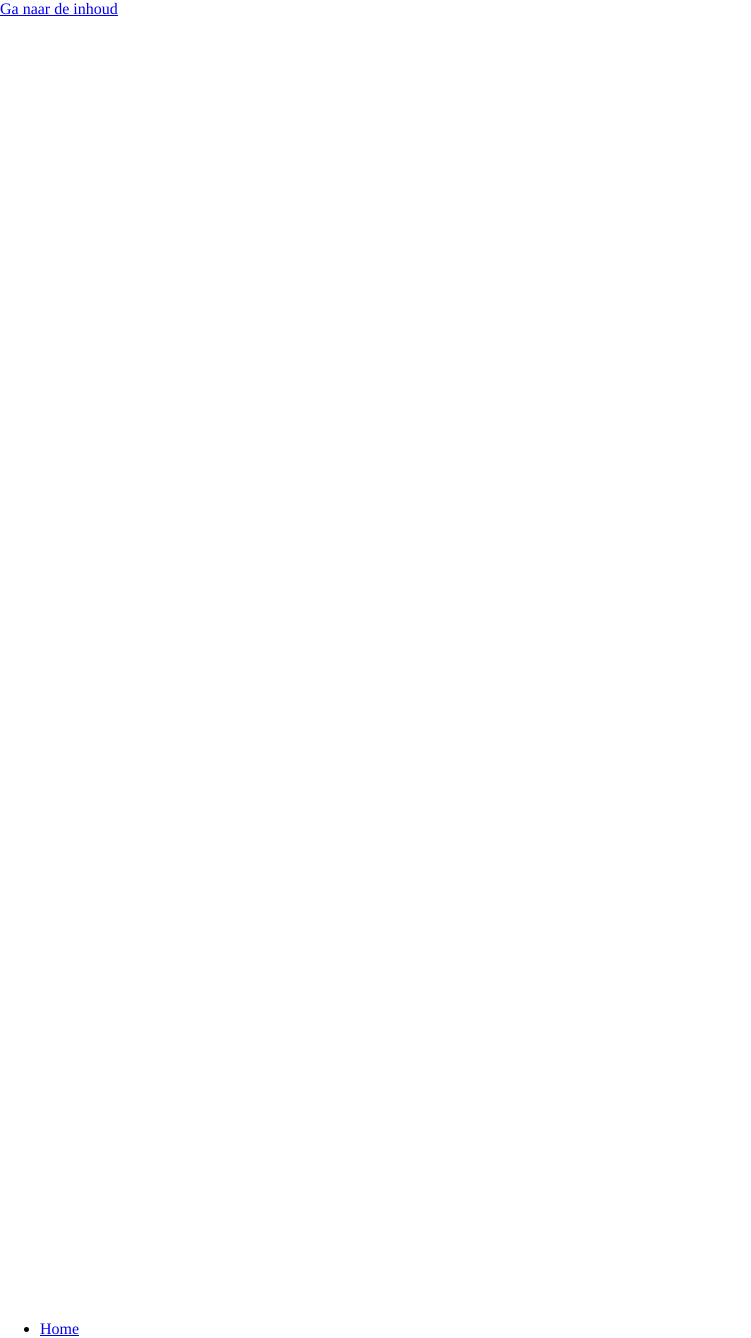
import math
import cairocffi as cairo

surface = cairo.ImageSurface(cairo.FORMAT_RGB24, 751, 1338)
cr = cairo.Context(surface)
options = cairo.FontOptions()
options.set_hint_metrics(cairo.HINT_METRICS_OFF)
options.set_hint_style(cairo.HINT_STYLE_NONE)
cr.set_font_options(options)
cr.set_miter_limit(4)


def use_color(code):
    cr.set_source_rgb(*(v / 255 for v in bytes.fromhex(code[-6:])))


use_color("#ffffff")
cr.paint()
cr.select_font_face("Liberation Serif")
cr.set_font_size(16)
use_color("#0000ee")
cr.move_to(0, 14)
cr.show_text("Ga naar de inhoud")
cr.rectangle(0, 15, 118, 1)
cr.fill()
use_color("#000000")
cr.arc(26.5, 1329.5, 2.5, 0, 2 * math.pi)
cr.fill()
use_color("#0000ee")
cr.move_to(40, 1334)
cr.show_text("Home")
cr.rectangle(40, 1335, 39, 1)
cr.fill()
surface.write_to_png("result.png")
